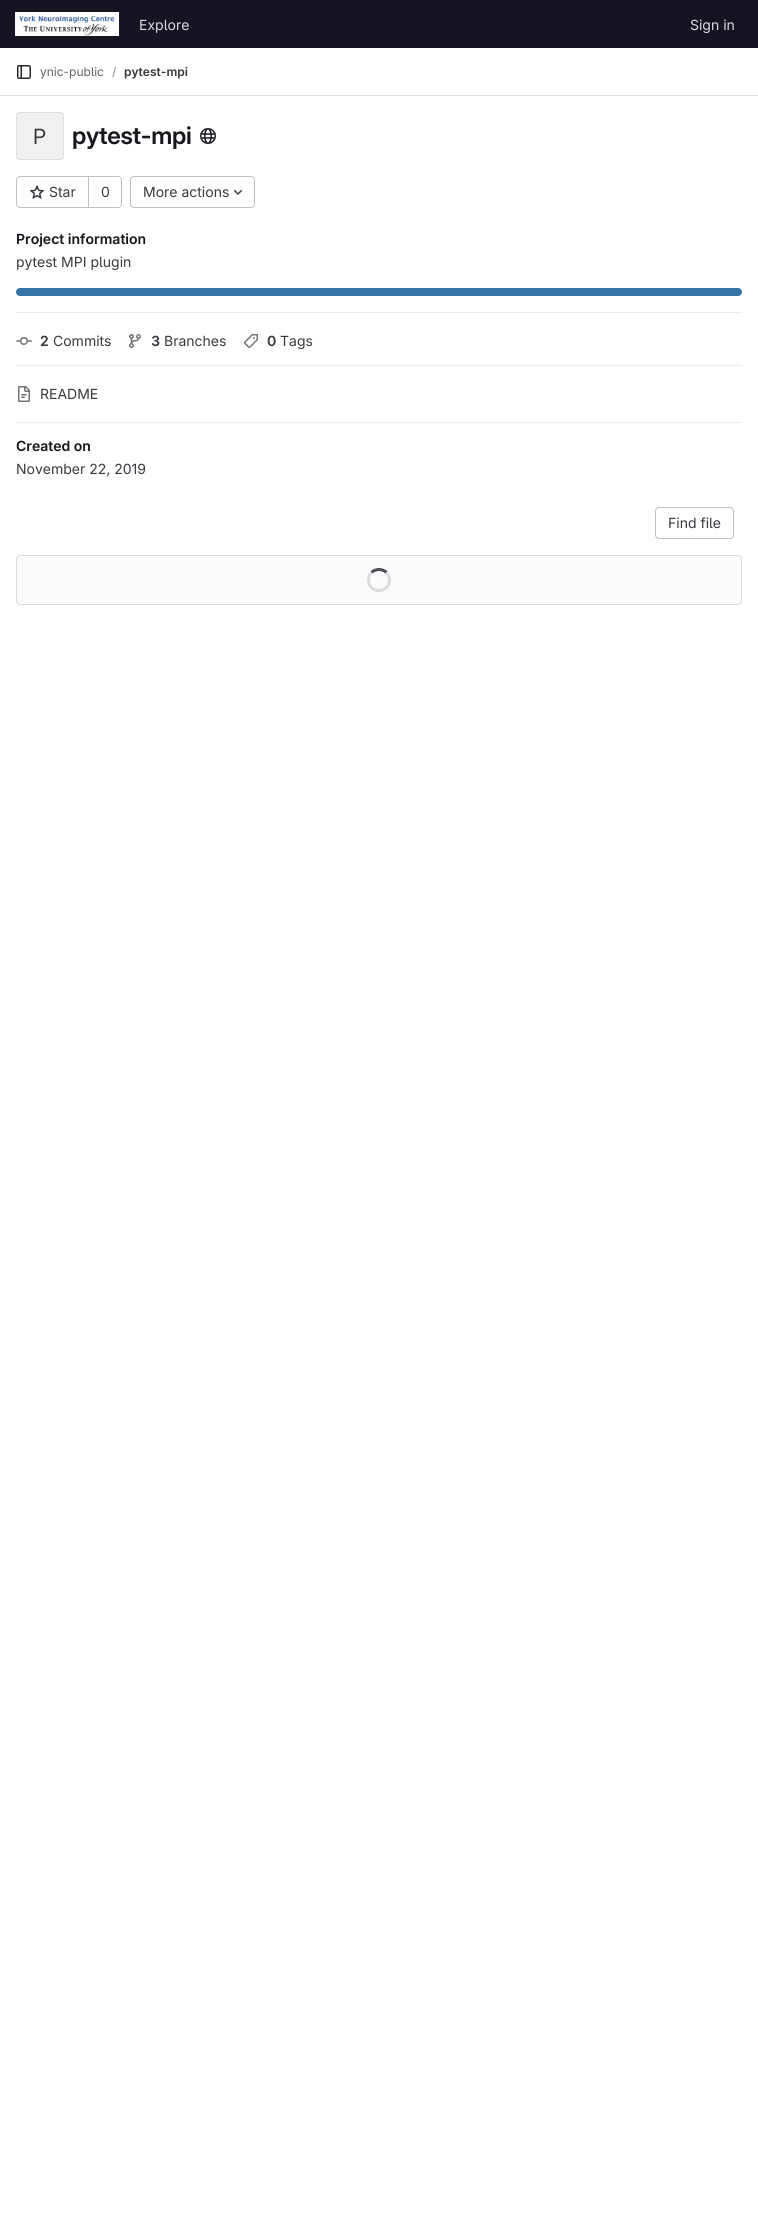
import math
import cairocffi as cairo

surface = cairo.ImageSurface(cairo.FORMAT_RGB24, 758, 2224)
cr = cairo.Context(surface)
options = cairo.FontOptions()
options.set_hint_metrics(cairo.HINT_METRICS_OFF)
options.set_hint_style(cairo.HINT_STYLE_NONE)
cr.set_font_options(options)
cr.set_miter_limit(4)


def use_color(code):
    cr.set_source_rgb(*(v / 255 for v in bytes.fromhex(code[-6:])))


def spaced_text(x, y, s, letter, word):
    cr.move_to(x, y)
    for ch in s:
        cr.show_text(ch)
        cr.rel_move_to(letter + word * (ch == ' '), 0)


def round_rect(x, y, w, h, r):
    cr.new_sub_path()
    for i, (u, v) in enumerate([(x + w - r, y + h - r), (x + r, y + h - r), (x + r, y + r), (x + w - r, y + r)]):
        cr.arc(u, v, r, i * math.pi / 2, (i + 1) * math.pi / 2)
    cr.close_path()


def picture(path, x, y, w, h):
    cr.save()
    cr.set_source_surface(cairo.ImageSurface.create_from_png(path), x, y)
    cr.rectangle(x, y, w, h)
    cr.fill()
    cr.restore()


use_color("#ffffff")
cr.paint()
use_color("#171321")
cr.rectangle(0, 0, 758, 48)
cr.fill()
picture("img1.png", 15, 12, 104, 24)
cr.select_font_face("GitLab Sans")
cr.set_font_size(14)
use_color("#dcdcde")
cr.move_to(139, 30)
cr.show_text("Explore")
cr.move_to(690, 30)
cr.show_text("Sign in")
cr.rectangle(0, 95, 758, 1)
cr.fill()
picture("img2.png", 17, 65, 14, 14)
cr.set_font_size(12)
use_color("#626168")
cr.move_to(40, 76)
cr.show_text("ynic-public")
use_color("#89888d")
cr.move_to(112, 76)
cr.show_text("/")
cr.select_font_face("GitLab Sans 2 SemiBold")
use_color("#3a383f")
cr.move_to(124, 76)
cr.show_text("pytest-mpi")
use_color("#f0f0f1")
round_rect(16, 112, 48, 48, 4)
cr.fill()
round_rect(16.5, 112.5, 47, 47, 3.5)
cr.set_source_rgba(0.02, 0.02, 0.024, 0.08)
cr.set_line_width(1)
cr.stroke()
cr.select_font_face("GitLab Sans 2")
cr.set_font_size(21)
use_color("#3a383f")
cr.move_to(33, 144)
cr.show_text("P")
cr.select_font_face("GitLab Sans SemiBold")
cr.set_font_size(24)
use_color("#18171d")
spaced_text(72, 144, "pytest-mpi", -0.25, 0)
picture("img3.png", 200, 128, 16, 16)
cr.new_path()
cr.move_to(20, 176.5)
cr.line_to(88.5, 176.5)
cr.line_to(88.5, 207.5)
cr.line_to(20, 207.5)
cr.curve_to(18, 207.5, 16.5, 206, 16.5, 204)
cr.line_to(16.5, 180)
cr.curve_to(16.5, 178, 18, 176.5, 20, 176.5)
cr.close_path()
use_color("#bfbfc3")
cr.stroke()
picture("img4.png", 30, 185, 14, 14)
cr.select_font_face("GitLab Sans")
cr.set_font_size(14)
use_color("#3a383f")
cr.move_to(49, 197)
cr.show_text("Star")
use_color("#ffffff")
cr.new_path()
cr.move_to(88.5, 176.5)
cr.line_to(118, 176.5)
cr.curve_to(120, 176.5, 121.5, 178, 121.5, 180)
cr.line_to(121.5, 204)
cr.curve_to(121.5, 206, 120, 207.5, 118, 207.5)
cr.line_to(88.5, 207.5)
cr.close_path()
cr.fill_preserve()
use_color("#bfbfc3")
cr.stroke()
use_color("#3a383f")
cr.move_to(101, 197)
cr.show_text("0")
round_rect(130.5, 176.5, 124, 31, 3.5)
use_color("#bfbfc3")
cr.stroke()
use_color("#3a383f")
cr.move_to(143, 197)
cr.show_text("More actions")
picture("img5.png", 234, 190, 8, 5)
use_color("#ececef")
cr.rectangle(16, 312, 726, 1)
cr.fill()
cr.select_font_face("GitLab Sans 2 SemiBold")
use_color("#18171d")
cr.move_to(16, 244)
cr.show_text("Project information")
cr.select_font_face("GitLab Sans")
use_color("#3a383f")
cr.move_to(16, 267)
cr.show_text("pytest MPI plugin")
use_color("#3572a5")
round_rect(16, 288, 726, 8, 4)
cr.fill()
use_color("#ececef")
cr.rectangle(16, 365, 726, 1)
cr.fill()
picture("img6.png", 16, 337, 16, 8)
cr.select_font_face("GitLab Sans 2 SemiBold")
use_color("#3a383f")
cr.move_to(40, 346)
cr.show_text("2")
cr.select_font_face("GitLab Sans")
cr.move_to(53, 346)
cr.show_text("Commits")
picture("img7.png", 129, 334, 12, 14)
cr.select_font_face("GitLab Sans 2 SemiBold")
cr.move_to(151, 346)
cr.show_text("3")
cr.select_font_face("GitLab Sans")
cr.move_to(164, 346)
cr.show_text("Branches")
picture("img8.png", 243, 334, 15, 14)
cr.select_font_face("GitLab Sans 2 SemiBold")
cr.move_to(267, 346)
cr.show_text("0")
cr.select_font_face("GitLab Sans")
cr.move_to(280, 346)
cr.show_text("Tags")
use_color("#ececef")
cr.rectangle(16, 422, 726, 1)
cr.fill()
picture("img9.png", 18, 386, 12, 16)
use_color("#3a383f")
cr.move_to(40, 399)
cr.show_text("README")
cr.select_font_face("GitLab Sans 2 SemiBold")
use_color("#18171d")
cr.move_to(16, 451)
cr.show_text("Created on")
cr.select_font_face("GitLab Sans")
use_color("#3a383f")
cr.move_to(16, 474)
cr.show_text("November 22, 2019")
round_rect(655.5, 507.5, 78, 31, 3.5)
use_color("#bfbfc3")
cr.stroke()
use_color("#3a383f")
cr.move_to(668, 528)
cr.show_text("Find file")
use_color("#fbfafd")
round_rect(16.5, 555.5, 725, 49, 3.5)
cr.fill_preserve()
use_color("#dcdcde")
cr.stroke()
cr.new_path()
cr.move_to(371.5, 572.5)
cr.curve_to(375.5, 568.5, 382.5, 568.5, 386.5, 572.5)
use_color("#4c4b51")
cr.set_line_width(3)
cr.stroke()
cr.new_path()
cr.move_to(386.5, 572.5)
cr.curve_to(388.5, 574.5, 389.5, 577, 389.5, 580)
cr.curve_to(389.5, 592.5, 371, 594.5, 368.5, 582)
cr.curve_to(368, 578.5, 369, 575, 371.5, 572.5)
use_color("#dcdcde")
cr.stroke()
surface.write_to_png("result.png")
